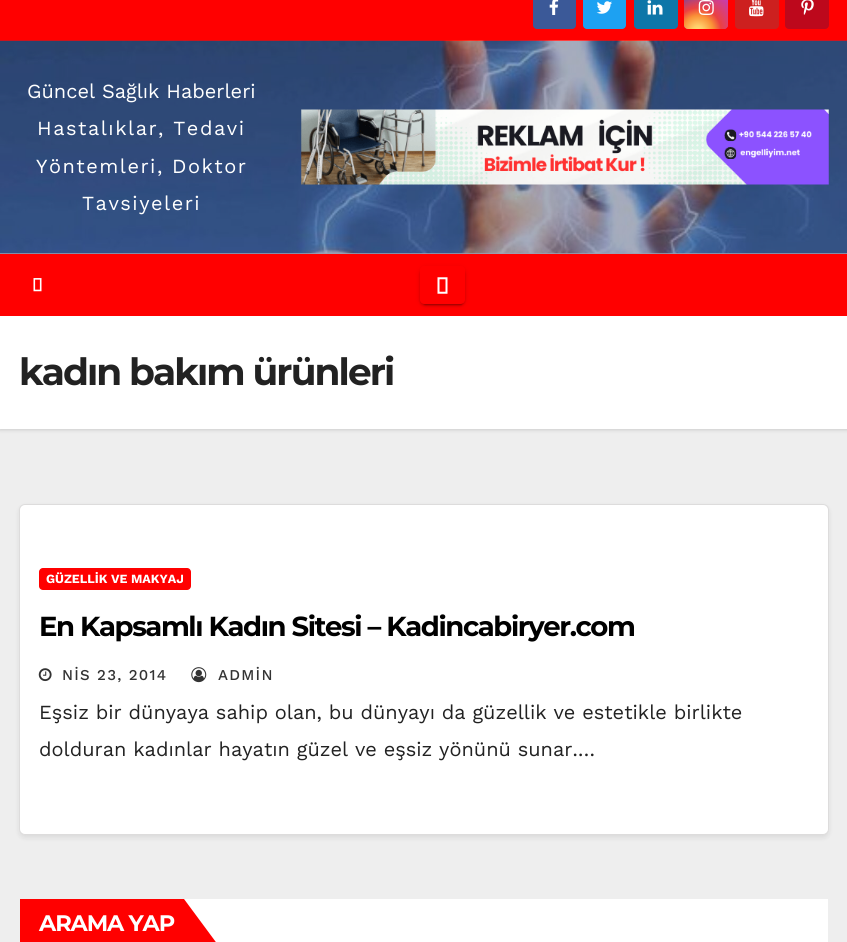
import math
import cairocffi as cairo

surface = cairo.ImageSurface(cairo.FORMAT_RGB24, 847, 942)
cr = cairo.Context(surface)
options = cairo.FontOptions()
options.set_hint_metrics(cairo.HINT_METRICS_OFF)
options.set_hint_style(cairo.HINT_STYLE_NONE)
cr.set_font_options(options)
cr.set_miter_limit(4)


def use_color(code):
    cr.set_source_rgb(*(v / 255 for v in bytes.fromhex(code[-6:])))


def spaced_text(x, y, s, letter, word):
    cr.move_to(x, y)
    for ch in s:
        cr.show_text(ch)
        cr.rel_move_to(letter + word * (ch == ' '), 0)


def round_rect(x, y, w, h, r):
    cr.new_sub_path()
    for i, (u, v) in enumerate([(x + w - r, y + h - r), (x + r, y + h - r), (x + r, y + r), (x + w - r, y + r)]):
        cr.arc(u, v, r, i * math.pi / 2, (i + 1) * math.pi / 2)
    cr.close_path()


def shadow(x, y, w, h, r, blur, alpha):
    cr.push_group_with_content(cairo.CONTENT_ALPHA)
    cr.set_operator(cairo.OPERATOR_SOURCE)
    for i in range(15, -16, -2):
        e = blur * i / 6
        if min(w, h) + 2 * e > 0:
            cr.set_source_rgba(0, 0, 0, alpha * math.erfc((i - 1) / 8.5) / 2)
            round_rect(x - e, y - e, w + 2 * e, h + 2 * e, max(0, min(r + e + blur * .6, min(w, h) / 2 + e)))
            cr.fill()
    cr.mask(cr.pop_group())


def picture(path, x, y, w, h):
    cr.save()
    cr.set_source_surface(cairo.ImageSurface.create_from_png(path), x, y)
    cr.rectangle(x, y, w, h)
    cr.fill()
    cr.restore()


use_color("#eeeeee")
cr.paint()
use_color("#9ca2b3")
cr.rectangle(0, 253, 847, 1)
cr.fill()
use_color("#ff0000")
cr.rectangle(0, 0, 847, 41)
cr.fill()
use_color("#3b5998")
round_rect(533, -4, 43, 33, 4)
cr.fill()
picture("img1.png", 549, 0, 10, 15)
use_color("#1da1f2")
round_rect(583, -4, 43, 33, 4)
cr.fill()
picture("img2.png", 596, 1, 16, 13)
use_color("#0e76a8")
round_rect(634, -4, 44, 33, 4)
cr.fill()
picture("img3.png", 647, 0, 16, 15)
gradient = cairo.LinearGradient(684, -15, 728, 29)
gradient.add_color_stop_rgba(0.12, 0.137, 0.294, 0.843, 1)
gradient.add_color_stop_rgba(0.58, 0.765, 0.235, 0.745, 1)
cr.set_source(gradient)
round_rect(684, -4, 44, 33, 4)
cr.fill()
gradient = cairo.RadialGradient(698, 31, 0, 698, 31, 55)
gradient.add_color_stop_rgba(0, 1, 0.882, 0.49, 1)
gradient.add_color_stop_rgba(0.1, 1, 0.804, 0.412, 1)
gradient.add_color_stop_rgba(0.28, 0.98, 0.569, 0.216, 1)
gradient.add_color_stop_rgba(0.42, 0.922, 0.255, 0.255, 1)
gradient.add_color_stop_rgba(0.82, 0.922, 0.255, 0.255, 0)
cr.set_source(gradient)
round_rect(684, -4, 44, 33, 4)
cr.fill()
picture("img4.png", 698, 0, 16, 15)
use_color("#cd201f")
round_rect(735, -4, 44, 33, 4)
cr.fill()
picture("img5.png", 749, 0, 15, 17)
use_color("#bd081c")
round_rect(785, -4, 44, 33, 4)
cr.fill()
picture("img6.png", 801, 0, 13, 15)
picture("img7.png", 0, 40, 847, 214)
cr.select_font_face("Work Sans")
cr.set_font_size(20)
use_color("#ffffff")
cr.move_to(27, 98)
cr.show_text("Güncel Sağlık Haberleri")
spaced_text(37, 135, "Hastalıklar, Tedavi", 1.5, 0)
spaced_text(36, 173, "Yöntemleri, Doktor", 1.5, 0)
spaced_text(82, 210, "Tavsiyeleri", 1.5, 0)
picture("img8.png", 301, 109, 528, 76)
use_color("#000000")
shadow(0, 318, 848, 112, 0, 2, 0.15)
use_color("#ff0000")
cr.rectangle(0, 254, 847, 62)
cr.fill()
picture("img9.png", 33, 278, 9, 14)
cr.save()
cr.set_fill_rule(cairo.FILL_RULE_EVEN_ODD)
cr.new_path()
cr.move_to(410, 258)
cr.line_to(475, 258)
cr.line_to(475, 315)
cr.line_to(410, 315)
cr.close_path()
cr.move_to(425, 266)
cr.line_to(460, 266)
cr.curve_to(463, 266, 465, 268, 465, 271)
cr.line_to(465, 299)
cr.curve_to(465, 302, 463, 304, 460, 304)
cr.line_to(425, 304)
cr.curve_to(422, 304, 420, 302, 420, 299)
cr.line_to(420, 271)
cr.curve_to(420, 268, 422, 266, 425, 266)
cr.close_path()
cr.clip()
use_color("#000000")
shadow(420, 268, 45, 37, 5, 3, 0.12)
cr.restore()
cr.save()
cr.set_fill_rule(cairo.FILL_RULE_EVEN_ODD)
cr.new_path()
cr.move_to(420, 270)
cr.line_to(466, 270)
cr.line_to(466, 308)
cr.line_to(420, 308)
cr.close_path()
cr.move_to(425, 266)
cr.line_to(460, 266)
cr.curve_to(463, 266, 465, 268, 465, 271)
cr.line_to(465, 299)
cr.curve_to(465, 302, 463, 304, 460, 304)
cr.line_to(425, 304)
cr.curve_to(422, 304, 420, 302, 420, 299)
cr.line_to(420, 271)
cr.curve_to(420, 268, 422, 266, 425, 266)
cr.close_path()
cr.clip()
use_color("#000000")
shadow(423, 273, 40, 32, 2.5, 0.5, 0.2)
cr.restore()
cr.save()
cr.set_fill_rule(cairo.FILL_RULE_EVEN_ODD)
cr.new_path()
cr.move_to(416, 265)
cr.line_to(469, 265)
cr.line_to(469, 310)
cr.line_to(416, 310)
cr.close_path()
cr.move_to(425, 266)
cr.line_to(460, 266)
cr.curve_to(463, 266, 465, 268, 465, 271)
cr.line_to(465, 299)
cr.curve_to(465, 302, 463, 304, 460, 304)
cr.line_to(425, 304)
cr.curve_to(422, 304, 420, 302, 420, 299)
cr.line_to(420, 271)
cr.curve_to(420, 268, 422, 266, 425, 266)
cr.close_path()
cr.clip()
use_color("#000000")
shadow(420, 269, 45, 37, 5, 1, 0.14)
cr.restore()
picture("img10.png", 437, 277, 11, 17)
use_color("#ffffff")
cr.rectangle(0, 316, 847, 113)
cr.fill()
cr.select_font_face("Montserrat", cairo.FONT_SLANT_NORMAL, cairo.FONT_WEIGHT_BOLD)
cr.set_font_size(37.5)
use_color("#222222")
spaced_text(19, 385, "kadın bakım ürünleri", -1.9, 0)
use_color("#000000")
shadow(19, 506, 810, 332, 6, 2.5, 0.08)
use_color("#ffffff")
round_rect(19.5, 504.5, 809, 330, 5.5)
cr.fill_preserve()
use_color("#dddcdc")
cr.set_line_width(1)
cr.stroke()
use_color("#ff0000")
round_rect(39, 568, 152, 22, 4)
cr.fill()
cr.select_font_face("Work Sans", cairo.FONT_SLANT_NORMAL, cairo.FONT_WEIGHT_BOLD)
cr.set_font_size(12.5)
use_color("#ffffff")
cr.move_to(46, 583)
cr.show_text("GÜZELLİK VE MAKYAJ")
cr.select_font_face("Montserrat", cairo.FONT_SLANT_NORMAL, cairo.FONT_WEIGHT_BOLD)
cr.set_font_size(27.5)
use_color("#000000")
spaced_text(39, 636, "En Kapsamlı Kadın Sitesi – Kadincabiryer.com", -1.4, 0)
picture("img11.png", 38, 668, 14, 14)
cr.select_font_face("Work Sans Medium")
cr.set_font_size(15)
use_color("#333333")
spaced_text(62, 680, "NİS 23, 2014", 1.25, 0)
picture("img12.png", 191, 667, 16, 16)
spaced_text(218, 680, "ADMİN", 1.25, 0)
cr.select_font_face("Work Sans")
cr.set_font_size(20)
use_color("#222222")
cr.move_to(39, 719)
cr.show_text("Eşsiz bir dünyaya sahip olan, bu dünyayı da güzellik ve estetikle birlikte")
cr.move_to(39, 756)
cr.show_text("dolduran kadınlar hayatın güzel ve eşsiz yönünü sunar.…")
use_color("#ffffff")
cr.rectangle(184, 899, 644, 43)
cr.fill()
use_color("#ff0000")
cr.rectangle(20, 899, 164, 43)
cr.fill()
cr.select_font_face("Montserrat", cairo.FONT_SLANT_NORMAL, cairo.FONT_WEIGHT_BOLD)
cr.set_font_size(22.5)
use_color("#ffffff")
spaced_text(39, 931, "ARAMA YAP", -1.1, 0)
use_color("#ff0000")
cr.new_path()
cr.move_to(184, 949)
cr.line_to(184, 899)
cr.line_to(221, 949)
cr.close_path()
cr.fill()
surface.write_to_png("result.png")
